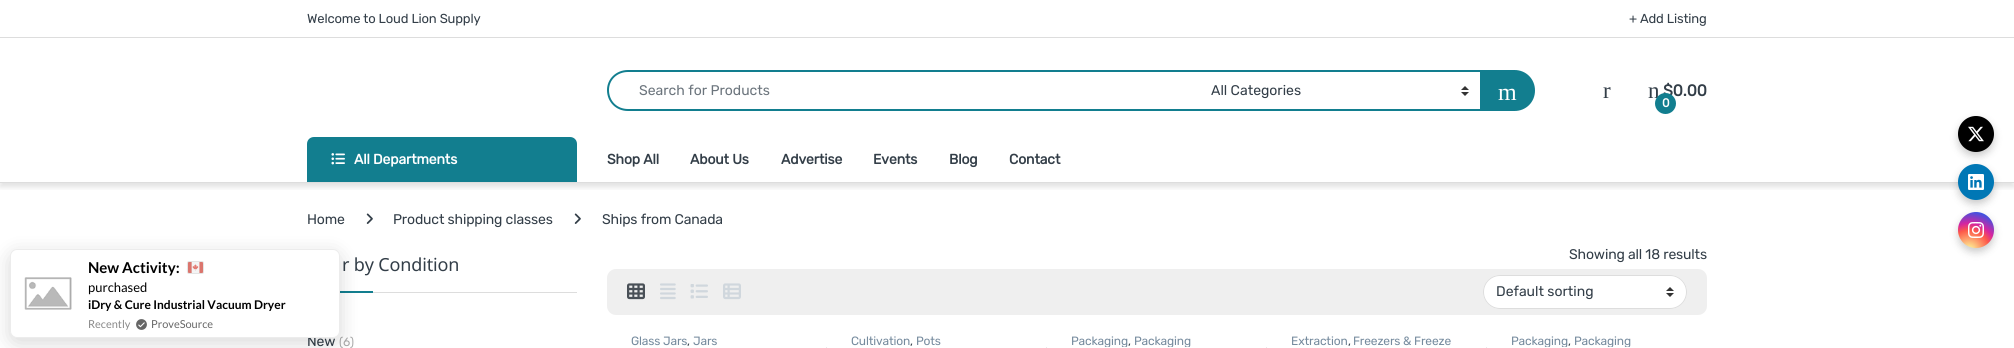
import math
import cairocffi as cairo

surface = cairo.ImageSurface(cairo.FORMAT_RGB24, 2014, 348)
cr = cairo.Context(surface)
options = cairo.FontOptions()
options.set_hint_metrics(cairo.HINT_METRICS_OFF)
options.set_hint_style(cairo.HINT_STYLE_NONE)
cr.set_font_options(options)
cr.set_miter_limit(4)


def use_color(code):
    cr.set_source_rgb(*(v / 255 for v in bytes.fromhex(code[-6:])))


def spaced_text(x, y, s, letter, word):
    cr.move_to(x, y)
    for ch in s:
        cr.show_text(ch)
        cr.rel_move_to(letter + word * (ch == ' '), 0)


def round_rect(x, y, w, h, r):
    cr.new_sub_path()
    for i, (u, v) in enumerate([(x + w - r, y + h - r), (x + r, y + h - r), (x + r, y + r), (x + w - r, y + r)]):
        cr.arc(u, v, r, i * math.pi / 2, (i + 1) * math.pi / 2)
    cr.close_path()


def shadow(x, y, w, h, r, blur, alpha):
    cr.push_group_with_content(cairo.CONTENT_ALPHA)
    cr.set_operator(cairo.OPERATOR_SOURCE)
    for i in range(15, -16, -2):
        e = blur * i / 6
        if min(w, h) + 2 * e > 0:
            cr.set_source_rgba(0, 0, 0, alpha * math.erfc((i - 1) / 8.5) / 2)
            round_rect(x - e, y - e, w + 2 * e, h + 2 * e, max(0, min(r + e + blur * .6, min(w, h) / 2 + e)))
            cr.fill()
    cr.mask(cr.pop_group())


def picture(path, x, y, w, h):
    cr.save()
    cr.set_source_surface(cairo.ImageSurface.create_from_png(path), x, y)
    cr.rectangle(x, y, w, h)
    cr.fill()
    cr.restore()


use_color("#ffffff")
cr.paint()
use_color("#dddddd")
cr.rectangle(0, 37, 2014, 1)
cr.fill()
cr.select_font_face("Rubik Light")
cr.set_font_size(13)
use_color("#333e48")
spaced_text(307, 23, "Welcome to Loud Lion Supply", -0.15, 0)
spaced_text(1629, 23, "+ Add Listing", -0.15, 0)
cr.save()
cr.rectangle(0, 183, 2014, 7)
cr.clip()
use_color("#000000")
shadow(0, 42, 2014, 145, 0, 3, 0.12)
cr.restore()
use_color("#dddddd")
cr.rectangle(0, 182, 2014, 1)
cr.fill()
use_color("#127e8f")
cr.set_fill_rule(cairo.FILL_RULE_EVEN_ODD)
cr.new_path()
cr.move_to(628, 70)
cr.line_to(1200, 70)
cr.line_to(1200, 111)
cr.line_to(628, 111)
cr.curve_to(616, 111, 607, 102, 607, 90)
cr.curve_to(607, 79, 616, 70, 628, 70)
cr.close_path()
cr.move_to(628, 72)
cr.line_to(1200, 72)
cr.line_to(1200, 109)
cr.line_to(628, 109)
cr.curve_to(617, 109, 609, 101, 609, 90)
cr.curve_to(609, 80, 617, 72, 628, 72)
cr.close_path()
cr.fill()
cr.set_font_size(14)
use_color("#6c757d")
cr.move_to(639, 95)
cr.show_text("Search for Products")
use_color("#127e8f")
cr.rectangle(1199, 70, 282, 2)
cr.fill()
cr.rectangle(1199, 109, 282, 2)
cr.fill()
picture("img1.png", 1461, 86, 8, 10)
use_color("#333e48")
cr.move_to(1211, 95)
cr.show_text("All Categories")
use_color("#127e8f")
cr.new_path()
cr.move_to(1481, 71)
cr.line_to(1514.5, 71)
cr.curve_to(1525.5, 71, 1534, 79.5, 1534, 90.5)
cr.curve_to(1534, 101.5, 1525.5, 110, 1514.5, 110)
cr.line_to(1481, 110)
cr.close_path()
cr.fill_preserve()
cr.stroke()
cr.select_font_face("Liberation Serif")
cr.set_font_size(24)
use_color("#ffffff")
cr.move_to(1498, 100)
cr.show_text("m")
cr.set_font_size(23)
use_color("#333e48")
spaced_text(1603, 98, "r", -0.15, 0)
spaced_text(1648, 98, "n", -0.15, 0)
cr.select_font_face("Rubik", cairo.FONT_SLANT_NORMAL, cairo.FONT_WEIGHT_BOLD)
cr.set_font_size(16)
spaced_text(1663, 96, "$0.00", -0.15, 0)
use_color("#127e8f")
cr.new_path()
cr.arc(1665.5, 103.5, 10.5, 0, 2 * math.pi)
cr.fill()
cr.set_font_size(12)
use_color("#ffffff")
spaced_text(1662, 107, "0", -0.15, 0)
use_color("#127e8f")
cr.new_path()
cr.move_to(314, 137)
cr.line_to(570, 137)
cr.curve_to(574, 137, 577, 140, 577, 144)
cr.line_to(577, 182)
cr.line_to(307, 182)
cr.line_to(307, 144)
cr.curve_to(307, 140, 310, 137, 314, 137)
cr.close_path()
cr.fill()
picture("img2.png", 331, 153, 14, 12)
cr.set_font_size(14)
use_color("#ffffff")
spaced_text(354, 164, "All Departments", -0.15, 0)
use_color("#333e48")
spaced_text(607, 164, "Shop All", -0.15, 0)
spaced_text(690, 164, "About Us", -0.15, 0)
spaced_text(781, 164, "Advertise", -0.15, 0)
spaced_text(873, 164, "Events", -0.15, 0)
spaced_text(949, 164, "Blog", -0.15, 0)
spaced_text(1009, 164, "Contact", -0.15, 0)
cr.select_font_face("Rubik Light")
spaced_text(307, 224, "Home", -0.15, 0)
picture("img3.png", 366, 213, 7, 11)
spaced_text(393, 224, "Product shipping classes", -0.15, 0)
picture("img3.png", 574, 213, 7, 11)
spaced_text(602, 224, "Ships from Canada", -0.15, 0)
use_color("#dddddd")
cr.rectangle(373, 292, 204, 1)
cr.fill()
cr.select_font_face("Noto Sans")
cr.set_font_size(18)
use_color("#333e48")
spaced_text(342, 271, "r by Condition", -0.15, 0)
use_color("#127e8f")
cr.rectangle(340, 291, 33, 2)
cr.fill()
cr.select_font_face("Rubik Light")
cr.set_font_size(14)
use_color("#333e48")
spaced_text(307, 346, "New", -0.15, 0)
cr.set_font_size(12)
use_color("#aaaaaa")
spaced_text(339, 346, "(6)", -0.15, 0)
cr.set_font_size(14)
use_color("#333e48")
spaced_text(1569, 259, "Showing all 18 results", -0.15, 0)
use_color("#efefef")
round_rect(607, 269, 1100, 46, 9)
cr.fill()
picture("img4.png", 627, 283, 18, 17)
picture("img5.png", 660, 283, 16, 17)
picture("img6.png", 690, 284, 18, 15)
picture("img7.png", 723, 283, 18, 17)
use_color("#ffffff")
round_rect(1483, 275, 204, 34, 17)
cr.fill()
picture("img1.png", 1666, 287, 8, 10)
round_rect(1483.5, 275.5, 203, 33, 16.5)
use_color("#dddddd")
cr.set_line_width(1)
cr.stroke()
use_color("#333e48")
cr.move_to(1496, 296)
cr.show_text("Default sorting")
cr.set_font_size(12)
use_color("#768b9e")
spaced_text(631, 345, "Glass Jars", -0.15, 0)
use_color("#333e48")
spaced_text(687, 345, ",", -0.15, 0)
use_color("#768b9e")
spaced_text(693, 345, "Jars", -0.15, 0)
use_color("#eaeaea")
cr.rectangle(826, 347, 1, 1)
cr.fill()
use_color("#768b9e")
spaced_text(851, 345, "Cultivation", -0.15, 0)
use_color("#333e48")
spaced_text(910, 345, ",", -0.15, 0)
use_color("#768b9e")
spaced_text(916, 345, "Pots", -0.15, 0)
use_color("#eaeaea")
cr.rectangle(1046, 347, 1, 1)
cr.fill()
cr.save()
cr.set_fill_rule(cairo.FILL_RULE_WINDING)
cr.rectangle(1071, 335, 172, 12)
cr.clip()
use_color("#768b9e")
spaced_text(1071, 345, "Packaging", -0.15, 0)
cr.restore()
use_color("#333e48")
spaced_text(1128, 345, ",", -0.15, 0)
cr.save()
cr.set_fill_rule(cairo.FILL_RULE_WINDING)
cr.rectangle(1071, 335, 172, 12)
cr.clip()
use_color("#768b9e")
spaced_text(1134, 345, "Packaging", -0.15, 0)
cr.restore()
use_color("#eaeaea")
cr.rectangle(1266, 347, 1, 1)
cr.fill()
use_color("#768b9e")
spaced_text(1291, 345, "Extraction", -0.15, 0)
use_color("#333e48")
spaced_text(1348, 345, ",", -0.15, 0)
use_color("#768b9e")
spaced_text(1353, 345, "Freezers & Freeze", -0.15, 0)
use_color("#eaeaea")
cr.rectangle(1486, 347, 1, 1)
cr.fill()
cr.save()
cr.set_fill_rule(cairo.FILL_RULE_WINDING)
cr.rectangle(1511, 335, 172, 12)
cr.clip()
use_color("#768b9e")
spaced_text(1511, 345, "Packaging", -0.15, 0)
cr.restore()
use_color("#333e48")
spaced_text(1568, 345, ",", -0.15, 0)
cr.save()
cr.set_fill_rule(cairo.FILL_RULE_WINDING)
cr.rectangle(1511, 335, 172, 12)
cr.clip()
use_color("#768b9e")
spaced_text(1574, 345, "Packaging", -0.15, 0)
cr.restore()
use_color("#000000")
shadow(1958, 120, 36, 36, 18, 4, 0.2)
use_color("#000000")
cr.arc(1976, 134, 18, 0, 2 * math.pi)
cr.fill()
picture("img8.png", 1968, 126, 16, 16)
use_color("#000000")
shadow(1958, 168, 36, 36, 18, 4, 0.2)
use_color("#0077b5")
cr.arc(1976, 182, 18, 0, 2 * math.pi)
cr.fill()
picture("img9.png", 1968, 174, 16, 16)
use_color("#000000")
shadow(1958, 216, 36, 36, 18, 4, 0.2)
gradient = cairo.RadialGradient(1969, 251, 0, 1969, 251, 46)
gradient.add_color_stop_rgba(0, 0.992, 0.957, 0.592, 1)
gradient.add_color_stop_rgba(0.05, 0.992, 0.957, 0.592, 1)
gradient.add_color_stop_rgba(0.45, 0.992, 0.349, 0.286, 1)
gradient.add_color_stop_rgba(0.6, 0.839, 0.141, 0.624, 1)
gradient.add_color_stop_rgba(0.9, 0.157, 0.353, 0.922, 1)
cr.set_source(gradient)
cr.arc(1976, 230, 18, 0, 2 * math.pi)
cr.fill()
picture("img10.png", 1968, 222, 16, 16)
use_color("#000000")
shadow(10, 254, 330, 89, 7, 10, 0.15)
use_color("#ffffff")
round_rect(10.5, 249.5, 329, 88, 6.5)
cr.fill_preserve()
use_color("#ececec")
cr.stroke()
picture("img11.png", 24, 277, 48, 33)
cr.select_font_face("Lato", cairo.FONT_SLANT_NORMAL, cairo.FONT_WEIGHT_BOLD)
cr.set_font_size(15)
use_color("#000000")
cr.move_to(88, 273)
cr.show_text("New Activity:")
use_color("#e4e4e4")
cr.set_fill_rule(cairo.FILL_RULE_WINDING)
cr.new_path()
cr.move_to(189, 261)
cr.curve_to(186, 261, 187, 266, 187, 267.5)
cr.curve_to(187, 269, 186, 274, 189, 274)
cr.line_to(200, 274)
cr.curve_to(203.5, 274, 204, 274, 204, 270.5)
cr.line_to(204, 266)
cr.curve_to(204, 264.5, 204.5, 261, 202, 261)
cr.close_path()
cr.fill()
picture("img12.png", 188, 262, 15, 11)
cr.select_font_face("Lato")
cr.set_font_size(13)
use_color("#000000")
cr.move_to(88, 292)
cr.show_text("purchased")
cr.select_font_face("Lato", cairo.FONT_SLANT_NORMAL, cairo.FONT_WEIGHT_BOLD)
cr.set_font_size(12)
cr.move_to(88, 309)
cr.show_text("iDry & Cure Industrial Vacuum Dryer")
cr.select_font_face("Lato")
cr.set_font_size(11)
use_color("#888888")
cr.move_to(88, 328)
cr.show_text("Recently")
picture("img13.png", 136, 319, 11, 11)
use_color("#666666")
cr.move_to(151, 328)
cr.show_text("ProveSource")
surface.write_to_png("result.png")
